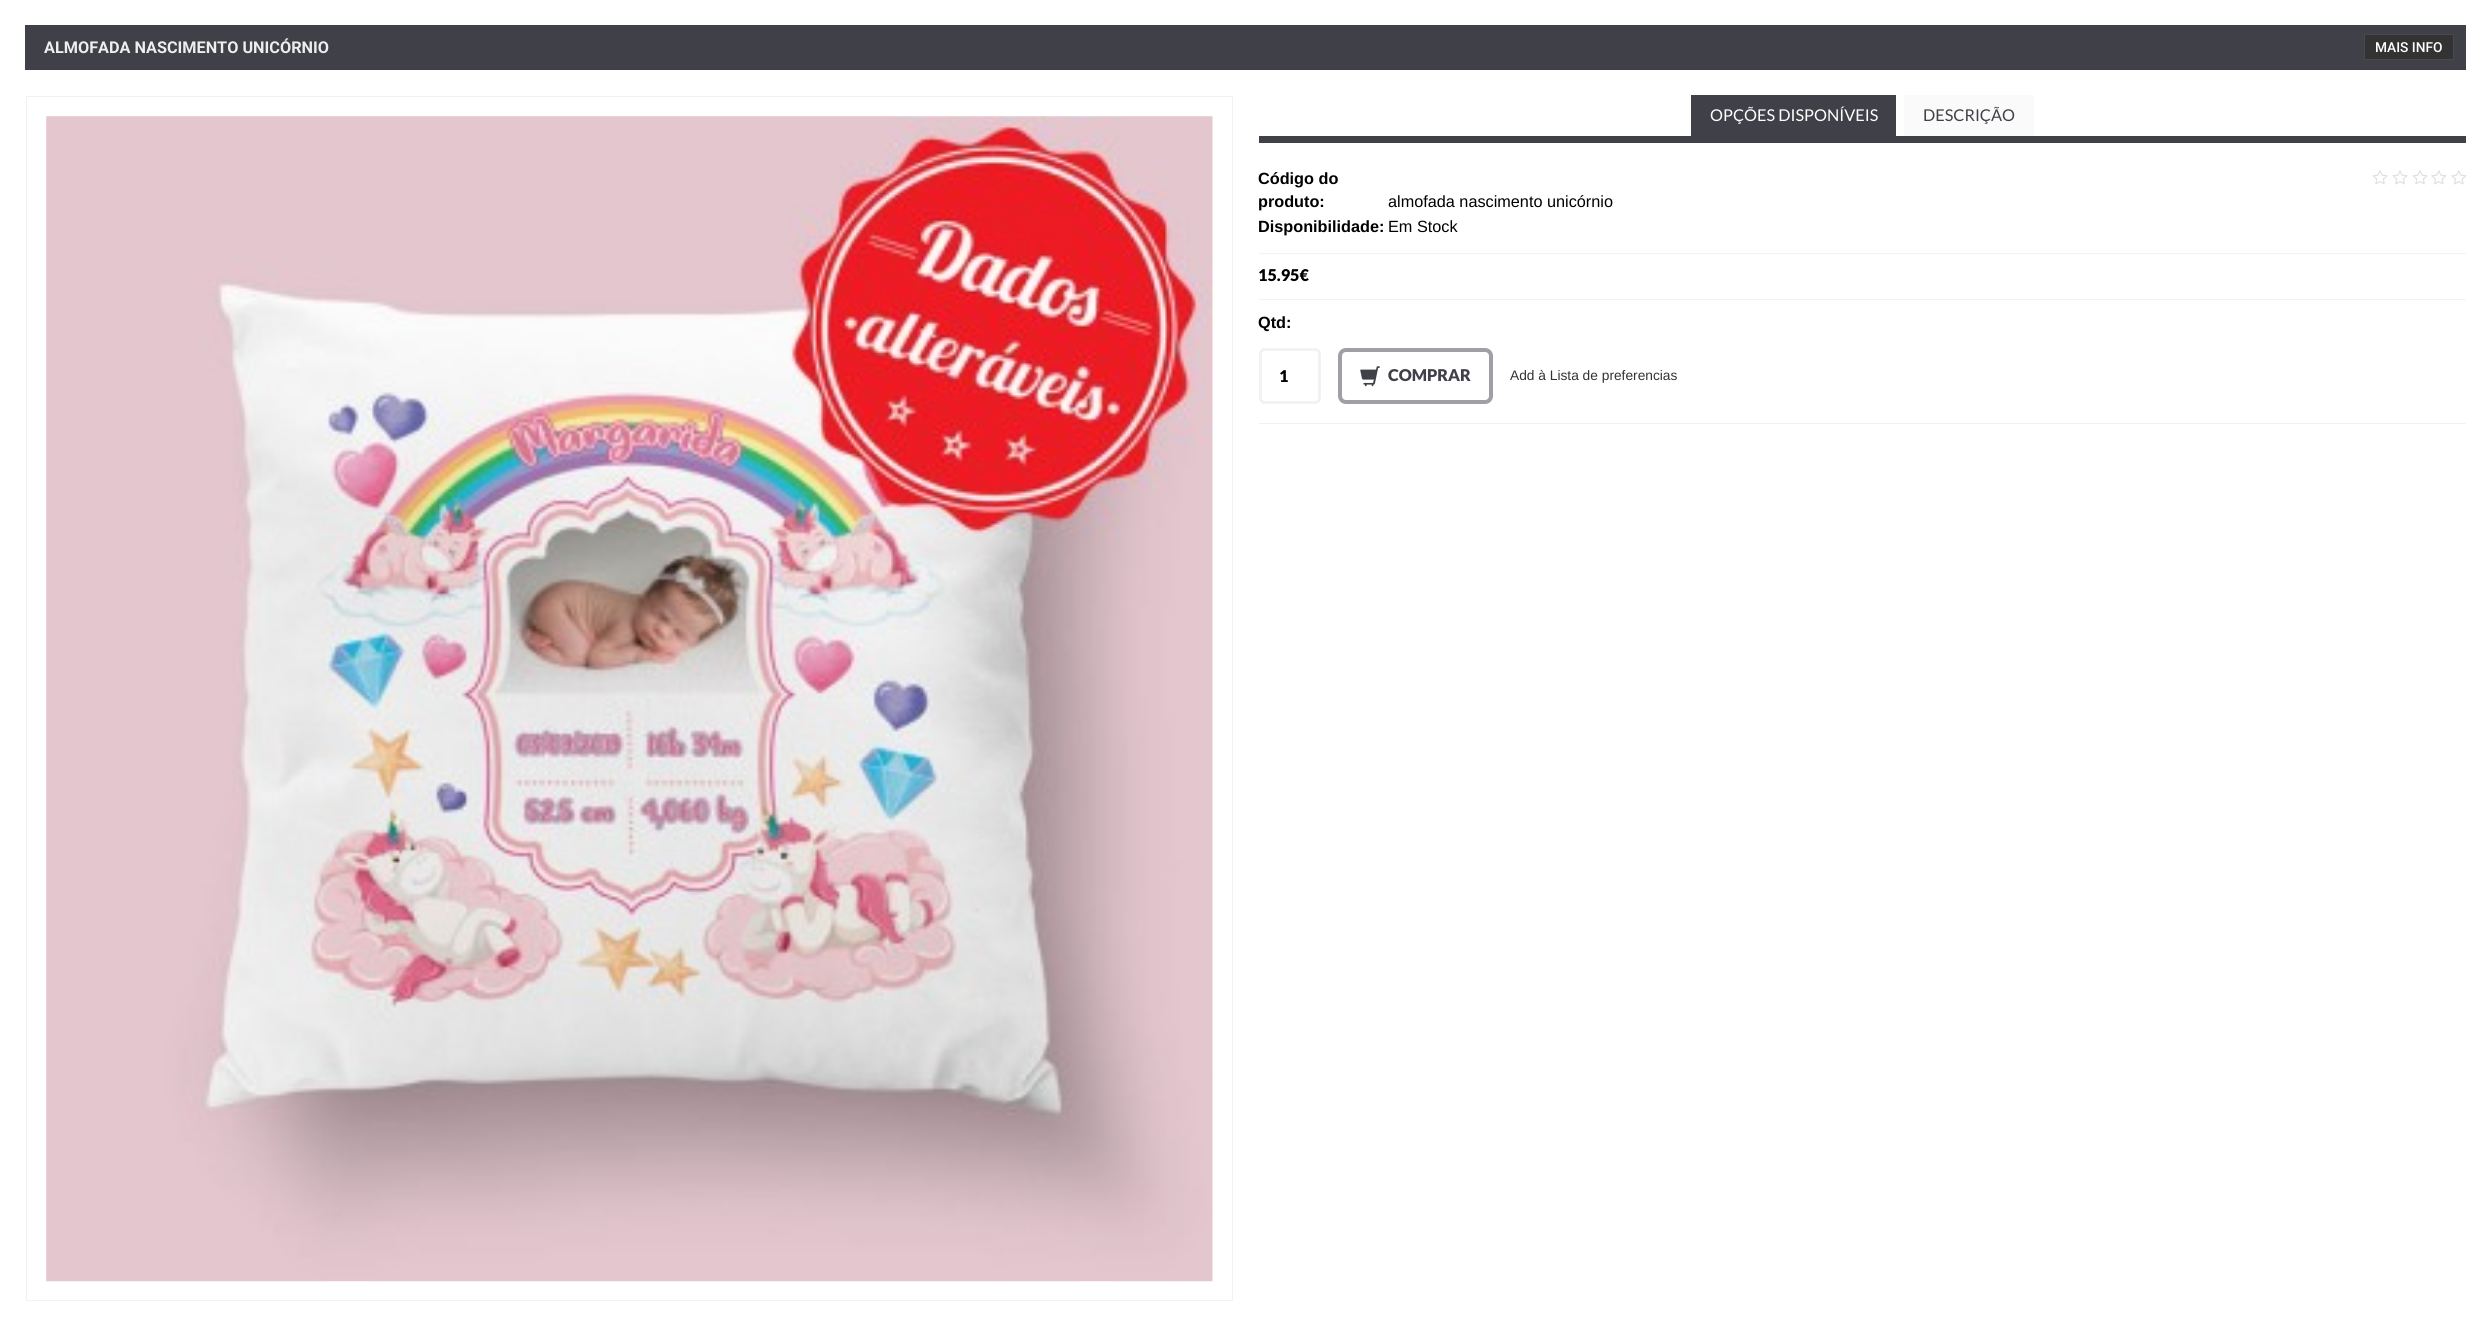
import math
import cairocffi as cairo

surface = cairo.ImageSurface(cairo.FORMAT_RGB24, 2491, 1337)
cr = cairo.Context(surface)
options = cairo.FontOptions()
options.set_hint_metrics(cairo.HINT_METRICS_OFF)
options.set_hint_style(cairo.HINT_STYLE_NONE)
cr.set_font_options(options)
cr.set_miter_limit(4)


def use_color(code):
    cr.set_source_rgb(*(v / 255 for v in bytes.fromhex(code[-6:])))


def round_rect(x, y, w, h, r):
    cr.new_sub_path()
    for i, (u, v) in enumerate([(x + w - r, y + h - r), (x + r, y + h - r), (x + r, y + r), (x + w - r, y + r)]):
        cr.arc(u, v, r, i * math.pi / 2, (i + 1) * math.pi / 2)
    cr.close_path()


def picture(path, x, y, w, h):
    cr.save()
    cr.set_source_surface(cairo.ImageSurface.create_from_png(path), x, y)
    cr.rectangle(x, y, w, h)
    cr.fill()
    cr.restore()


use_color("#ffffff")
cr.paint()
use_color("#404048")
cr.rectangle(25, 25, 2441, 45)
cr.fill()
cr.select_font_face("Roboto", cairo.FONT_SLANT_NORMAL, cairo.FONT_WEIGHT_BOLD)
cr.set_font_size(16.25)
use_color("#eeeeee")
cr.move_to(44, 53)
cr.show_text("ALMOFADA NASCIMENTO UNICÓRNIO")
use_color("#333333")
cr.rectangle(2364.5, 34.5, 89, 25)
cr.fill_preserve()
use_color("#4d4550")
cr.set_line_width(1)
cr.stroke()
cr.select_font_face("Roboto Medium")
cr.set_font_size(13.75)
use_color("#ffffff")
cr.move_to(2375, 52)
cr.show_text("MAIS INFO")
cr.rectangle(26.5, 96.5, 1206, 1204)
use_color("#f2f2f2")
cr.stroke()
picture("img1.png", 46, 116, 1167, 1166)
use_color("#404048")
cr.rectangle(1259, 136, 1207, 7)
cr.fill()
cr.rectangle(1691, 95, 205, 41)
cr.fill()
cr.select_font_face("Lato")
cr.set_font_size(16.25)
use_color("#ffffff")
cr.move_to(1710, 121)
cr.show_text("OPÇÕES DISPONÍVEIS")
use_color("#fafafa")
cr.rectangle(1904, 95, 130, 41)
cr.fill()
use_color("#404048")
cr.move_to(1923, 121)
cr.show_text("DESCRIÇÃO")
use_color("#f2f2f2")
cr.rectangle(1259, 253, 1207, 1)
cr.fill()
cr.select_font_face("Liberation Sans", cairo.FONT_SLANT_NORMAL, cairo.FONT_WEIGHT_BOLD)
use_color("#000000")
cr.move_to(1258, 184)
cr.show_text("Código do")
cr.move_to(1258, 207)
cr.show_text("produto:")
cr.select_font_face("Liberation Sans")
cr.move_to(1388, 207)
cr.show_text("almofada nascimento unicórnio")
cr.select_font_face("Liberation Sans", cairo.FONT_SLANT_NORMAL, cairo.FONT_WEIGHT_BOLD)
cr.move_to(1258, 232)
cr.show_text("Disponibilidade:")
cr.select_font_face("Liberation Sans")
cr.move_to(1388, 232)
cr.show_text("Em Stock")
picture("img2.png", 2372, 170, 16, 15)
picture("img2.png", 2392, 170, 16, 15)
picture("img2.png", 2412, 170, 16, 15)
picture("img3.png", 2431, 170, 16, 15)
picture("img3.png", 2451, 170, 16, 15)
use_color("#f2f2f2")
cr.rectangle(1259, 299, 1207, 1)
cr.fill()
cr.select_font_face("Lato Black")
use_color("#000000")
cr.move_to(1258, 281)
cr.show_text("15.95€")
use_color("#f2f2f2")
cr.rectangle(1259, 423, 1207, 1)
cr.fill()
cr.select_font_face("Liberation Sans", cairo.FONT_SLANT_NORMAL, cairo.FONT_WEIGHT_BOLD)
use_color("#000000")
cr.move_to(1258, 328)
cr.show_text("Qtd:")
round_rect(1260.5, 349.5, 59, 53, 4.5)
use_color("#f2f2f2")
cr.set_line_width(3)
cr.stroke()
cr.select_font_face("Lato Black")
use_color("#000000")
cr.move_to(1279, 382)
cr.show_text("1")
round_rect(1340, 350, 151, 52, 6)
use_color("#a0a0a4")
cr.set_line_width(4)
cr.stroke()
picture("img4.png", 1360, 366, 20, 21)
use_color("#404048")
cr.move_to(1388, 381)
cr.show_text("COMPRAR")
cr.select_font_face("Liberation Sans")
cr.set_font_size(13.75)
use_color("#333333")
cr.move_to(1510, 380)
cr.show_text("Add à Lista de preferencias")
surface.write_to_png("result.png")
